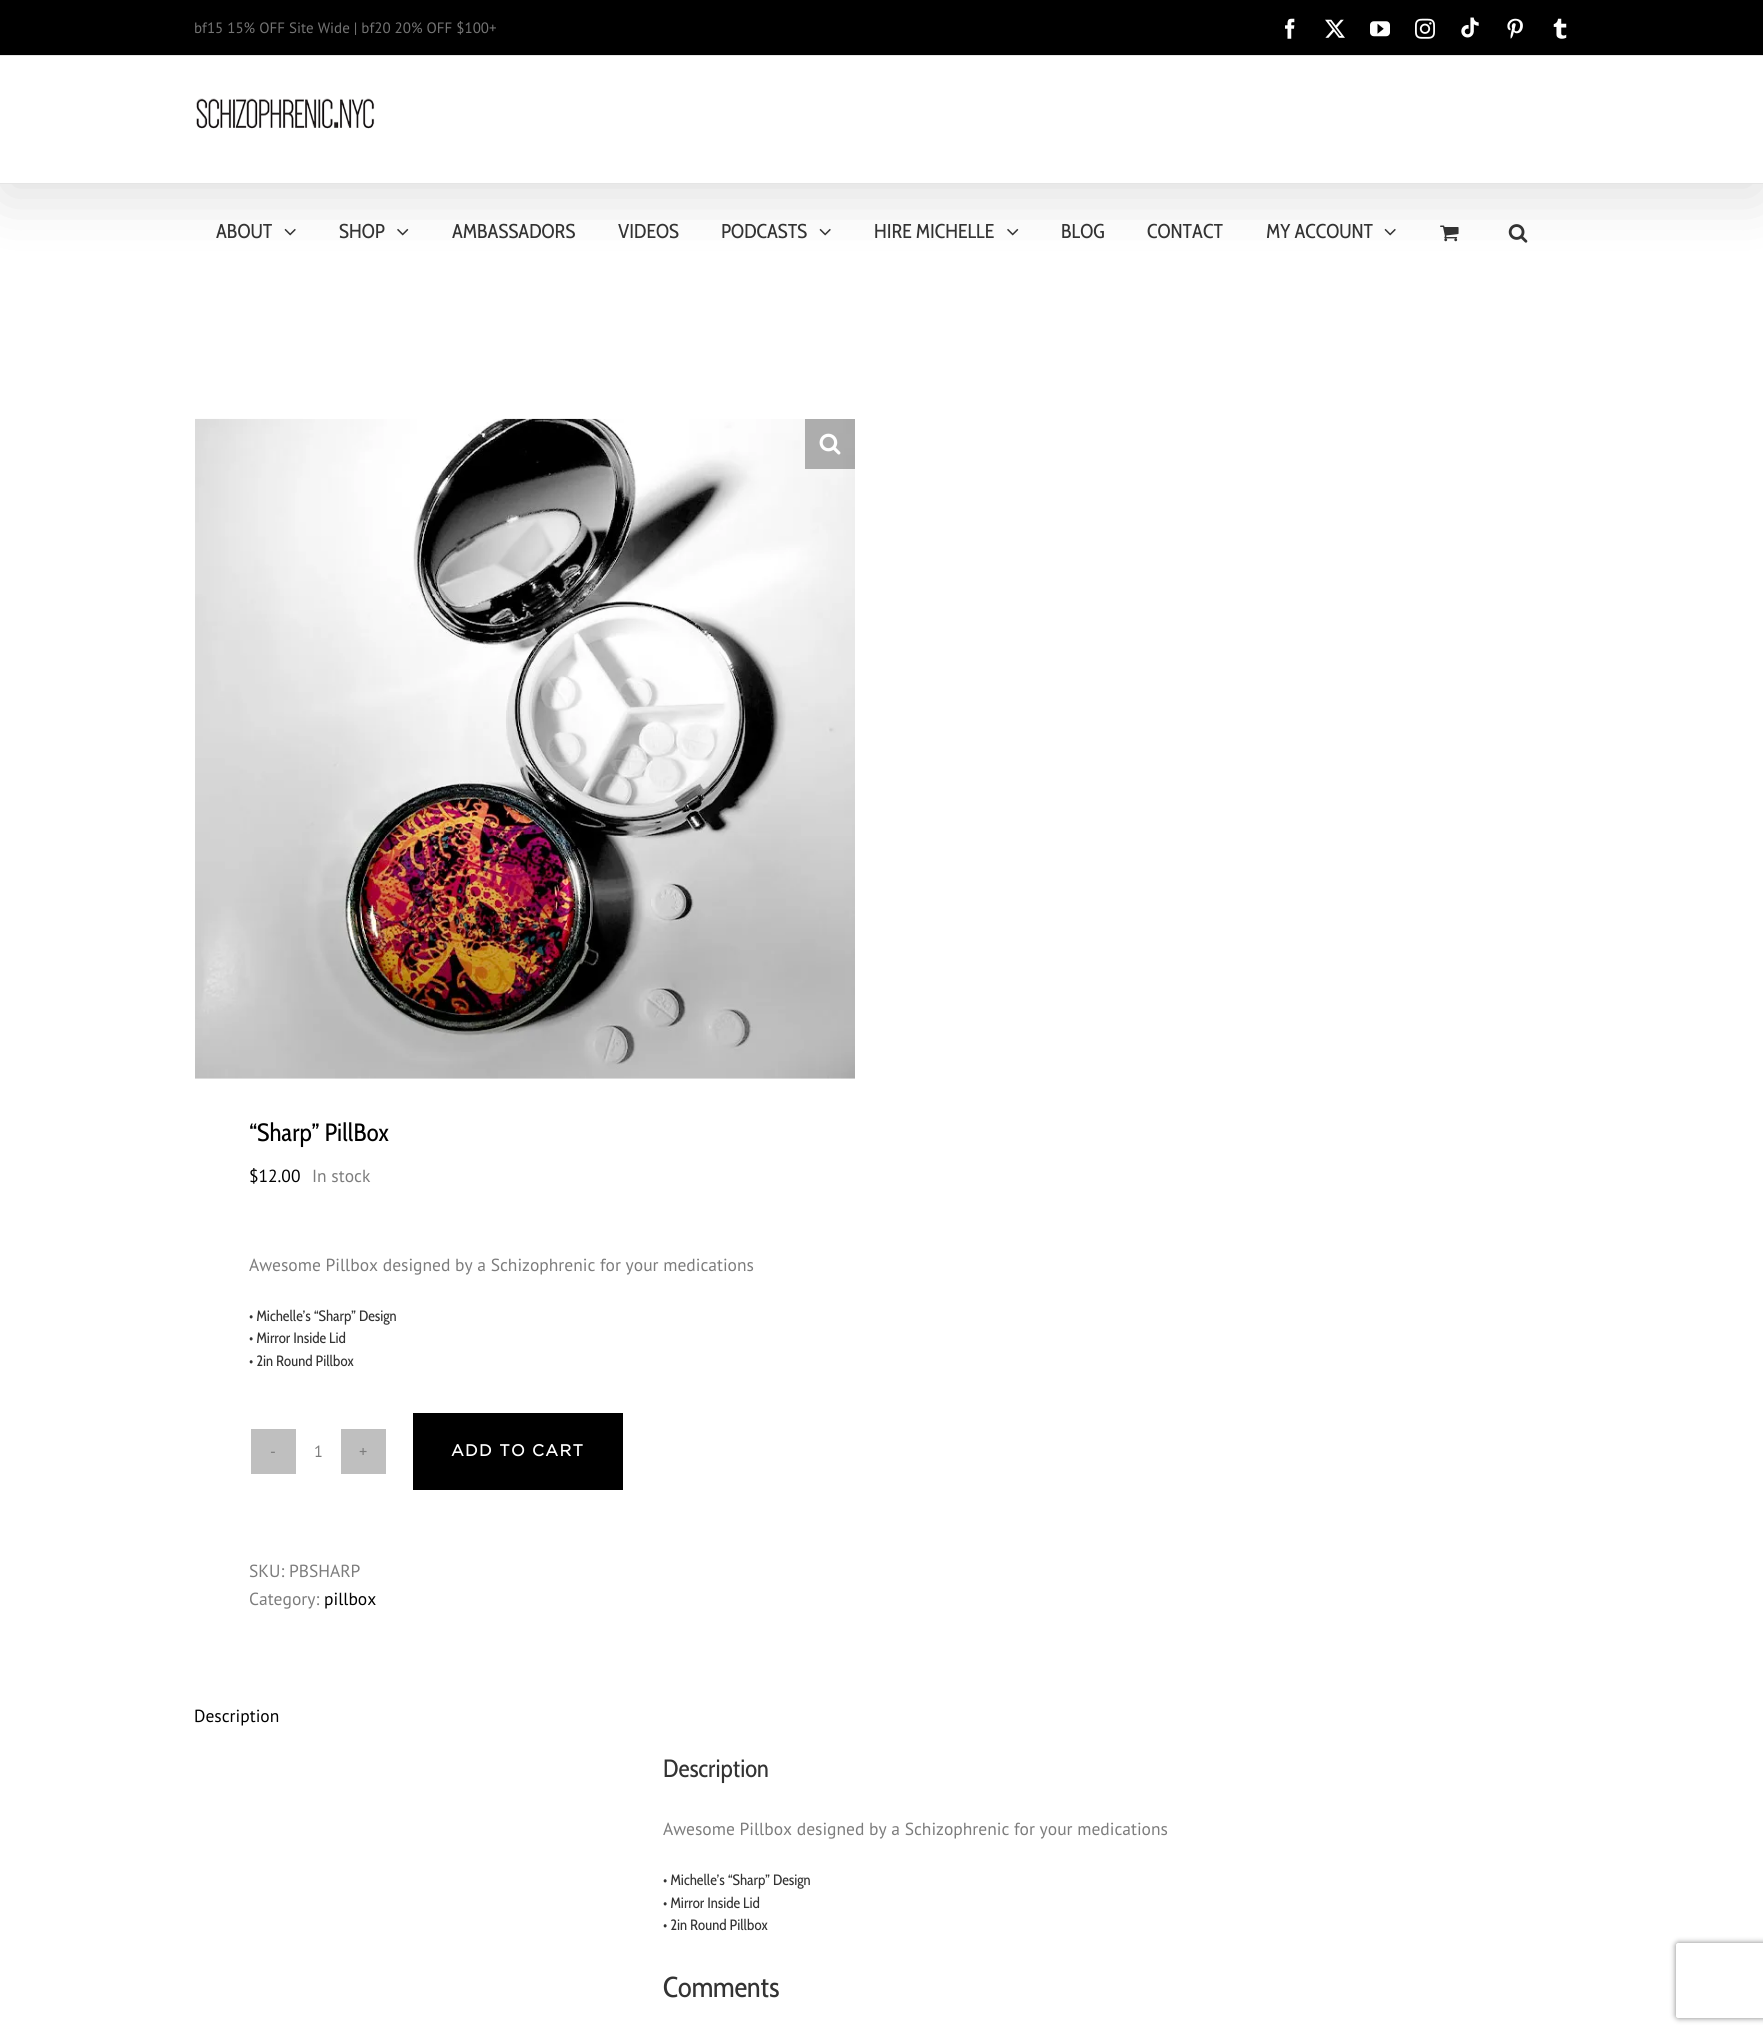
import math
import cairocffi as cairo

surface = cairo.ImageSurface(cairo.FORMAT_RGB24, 1763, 2034)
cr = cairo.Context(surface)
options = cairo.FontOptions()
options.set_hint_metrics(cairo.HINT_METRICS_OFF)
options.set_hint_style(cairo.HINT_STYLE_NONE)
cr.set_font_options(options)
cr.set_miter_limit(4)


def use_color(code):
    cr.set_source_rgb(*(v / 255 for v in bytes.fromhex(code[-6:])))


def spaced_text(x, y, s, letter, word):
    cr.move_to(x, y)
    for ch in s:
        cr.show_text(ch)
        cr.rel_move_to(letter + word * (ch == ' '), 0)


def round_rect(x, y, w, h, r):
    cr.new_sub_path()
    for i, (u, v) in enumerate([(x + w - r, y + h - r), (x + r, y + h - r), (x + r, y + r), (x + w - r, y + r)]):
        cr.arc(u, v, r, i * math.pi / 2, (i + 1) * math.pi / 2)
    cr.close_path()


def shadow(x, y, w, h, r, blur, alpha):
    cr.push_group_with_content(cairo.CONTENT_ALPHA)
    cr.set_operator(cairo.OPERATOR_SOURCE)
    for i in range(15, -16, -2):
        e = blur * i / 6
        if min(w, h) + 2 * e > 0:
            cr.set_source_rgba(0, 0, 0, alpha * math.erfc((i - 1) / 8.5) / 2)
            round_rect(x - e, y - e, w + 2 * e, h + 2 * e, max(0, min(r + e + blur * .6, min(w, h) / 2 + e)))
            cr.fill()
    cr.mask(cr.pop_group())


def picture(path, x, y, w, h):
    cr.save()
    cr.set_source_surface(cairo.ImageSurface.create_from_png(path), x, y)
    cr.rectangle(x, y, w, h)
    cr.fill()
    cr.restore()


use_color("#ffffff")
cr.paint()
use_color("#000000")
shadow(3, 15, 1758, 179, 0, 31, 0.14)
use_color("#000000")
cr.rectangle(0, 0, 1763, 55)
cr.fill()
use_color("#e5e5e5")
cr.rectangle(0, 55, 1763, 1)
cr.fill()
cr.select_font_face("PT Sans")
cr.set_font_size(15)
use_color("#747474")
cr.move_to(194, 33)
cr.show_text("bf15 15% OFF Site Wide | bf20 20% OFF $100+")
picture("img1.png", 1285, 18, 10, 21)
picture("img2.png", 1325, 19, 20, 19)
picture("img3.png", 1370, 21, 20, 16)
picture("img4.png", 1415, 18, 20, 21)
picture("img5.png", 1461, 17, 18, 21)
picture("img6.png", 1507, 18, 16, 21)
picture("img7.png", 1553, 18, 14, 21)
use_color("#ffffff")
cr.rectangle(0, 56, 1763, 127)
cr.fill()
use_color("#e5e5e5")
cr.rectangle(0, 183, 1763, 1)
cr.fill()
picture("img8.png", 196, 98, 179, 31)
cr.select_font_face("Cabin Condensed")
cr.set_font_size(20)
use_color("#333333")
cr.move_to(216, 238)
cr.show_text("ABOUT")
picture("img9.png", 284, 228, 12, 8)
cr.move_to(339, 238)
cr.show_text("SHOP")
picture("img10.png", 397, 228, 12, 8)
cr.move_to(452, 238)
cr.show_text("AMBASSADORS")
cr.move_to(618, 238)
cr.show_text("VIDEOS")
cr.move_to(721, 238)
cr.show_text("PODCASTS")
picture("img9.png", 819, 228, 12, 8)
cr.move_to(874, 238)
cr.show_text("HIRE MICHELLE")
picture("img10.png", 1007, 228, 12, 8)
cr.move_to(1061, 238)
cr.show_text("BLOG")
cr.move_to(1147, 238)
cr.show_text("CONTACT")
cr.move_to(1266, 238)
cr.show_text("MY ACCOUNT")
picture("img9.png", 1384, 228, 12, 8)
picture("img11.png", 1440, 225, 19, 17)
picture("img12.png", 1508, 224, 20, 19)
picture("img13.png", 195, 418, 660, 661)
cr.set_source_rgba(0, 0, 0, 0.3)
cr.rectangle(805, 419, 50, 50)
cr.fill()
picture("img14.png", 819, 433, 22, 22)
cr.set_font_size(25)
use_color("#000000")
cr.move_to(249, 1141)
cr.show_text("“Sharp” PillBox")
cr.select_font_face("PT Sans")
cr.set_font_size(17.5)
cr.move_to(249, 1182)
cr.show_text("$12.00")
use_color("#7c7c7c")
cr.move_to(312, 1182)
cr.show_text("In stock")
cr.move_to(249, 1271)
cr.show_text("Awesome Pillbox designed by a Schizophrenic for your medications")
cr.select_font_face("Cabin Condensed")
cr.set_font_size(15)
use_color("#333333")
cr.move_to(249, 1321)
cr.show_text("• Michelle’s “Sharp” Design")
cr.move_to(249, 1343)
cr.show_text("• Mirror Inside Lid")
cr.move_to(249, 1366)
cr.show_text("• 2in Round Pillbox")
use_color("#bfbfbf")
cr.rectangle(251, 1429, 45, 45)
cr.fill()
cr.select_font_face("PT Sans")
cr.set_font_size(16.25)
use_color("#7c7c7c")
cr.move_to(270, 1457)
cr.show_text("-")
cr.move_to(314, 1457)
cr.show_text("1")
use_color("#bfbfbf")
cr.rectangle(341, 1429, 45, 45)
cr.fill()
use_color("#7c7c7c")
cr.move_to(359, 1457)
cr.show_text("+")
use_color("#000000")
cr.rectangle(413, 1413, 210, 77)
cr.fill()
cr.select_font_face("Gotham", cairo.FONT_SLANT_NORMAL, cairo.FONT_WEIGHT_BOLD)
use_color("#ffffff")
spaced_text(451, 1456, "ADD TO CART", 1.25, 0)
cr.select_font_face("PT Sans")
cr.set_font_size(17.5)
use_color("#7c7c7c")
cr.move_to(249, 1577)
cr.show_text("SKU: PBSHARP")
cr.move_to(249, 1605)
cr.show_text("Category:")
use_color("#000000")
cr.move_to(324, 1605)
cr.show_text("pillbox")
cr.move_to(194, 1722)
cr.show_text("Description")
cr.select_font_face("Cabin Condensed")
cr.set_font_size(25)
use_color("#333333")
cr.move_to(663, 1777)
cr.show_text("Description")
cr.select_font_face("PT Sans")
cr.set_font_size(17.5)
use_color("#7c7c7c")
cr.move_to(663, 1835)
cr.show_text("Awesome Pillbox designed by a Schizophrenic for your medications")
cr.select_font_face("Cabin Condensed")
cr.set_font_size(15)
use_color("#333333")
cr.move_to(663, 1885)
cr.show_text("• Michelle’s “Sharp” Design")
cr.move_to(663, 1908)
cr.show_text("• Mirror Inside Lid")
cr.move_to(663, 1930)
cr.show_text("• 2in Round Pillbox")
cr.set_font_size(28.75)
cr.move_to(663, 1997)
cr.show_text("Comments")
cr.save()
cr.set_fill_rule(cairo.FILL_RULE_EVEN_ODD)
cr.new_path()
cr.move_to(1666, 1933)
cr.line_to(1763, 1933)
cr.line_to(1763, 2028)
cr.line_to(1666, 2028)
cr.close_path()
cr.move_to(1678.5, 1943)
cr.line_to(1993.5, 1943)
cr.curve_to(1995, 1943, 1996, 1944, 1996, 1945.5)
cr.line_to(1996, 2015.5)
cr.curve_to(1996, 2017, 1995, 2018, 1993.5, 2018)
cr.line_to(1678.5, 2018)
cr.curve_to(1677, 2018, 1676, 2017, 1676, 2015.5)
cr.line_to(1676, 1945.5)
cr.curve_to(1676, 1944, 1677, 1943, 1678.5, 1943)
cr.close_path()
cr.clip()
use_color("#808080")
shadow(1676, 1943, 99, 75, 2.5, 3, 1)
cr.restore()
surface.write_to_png("result.png")
